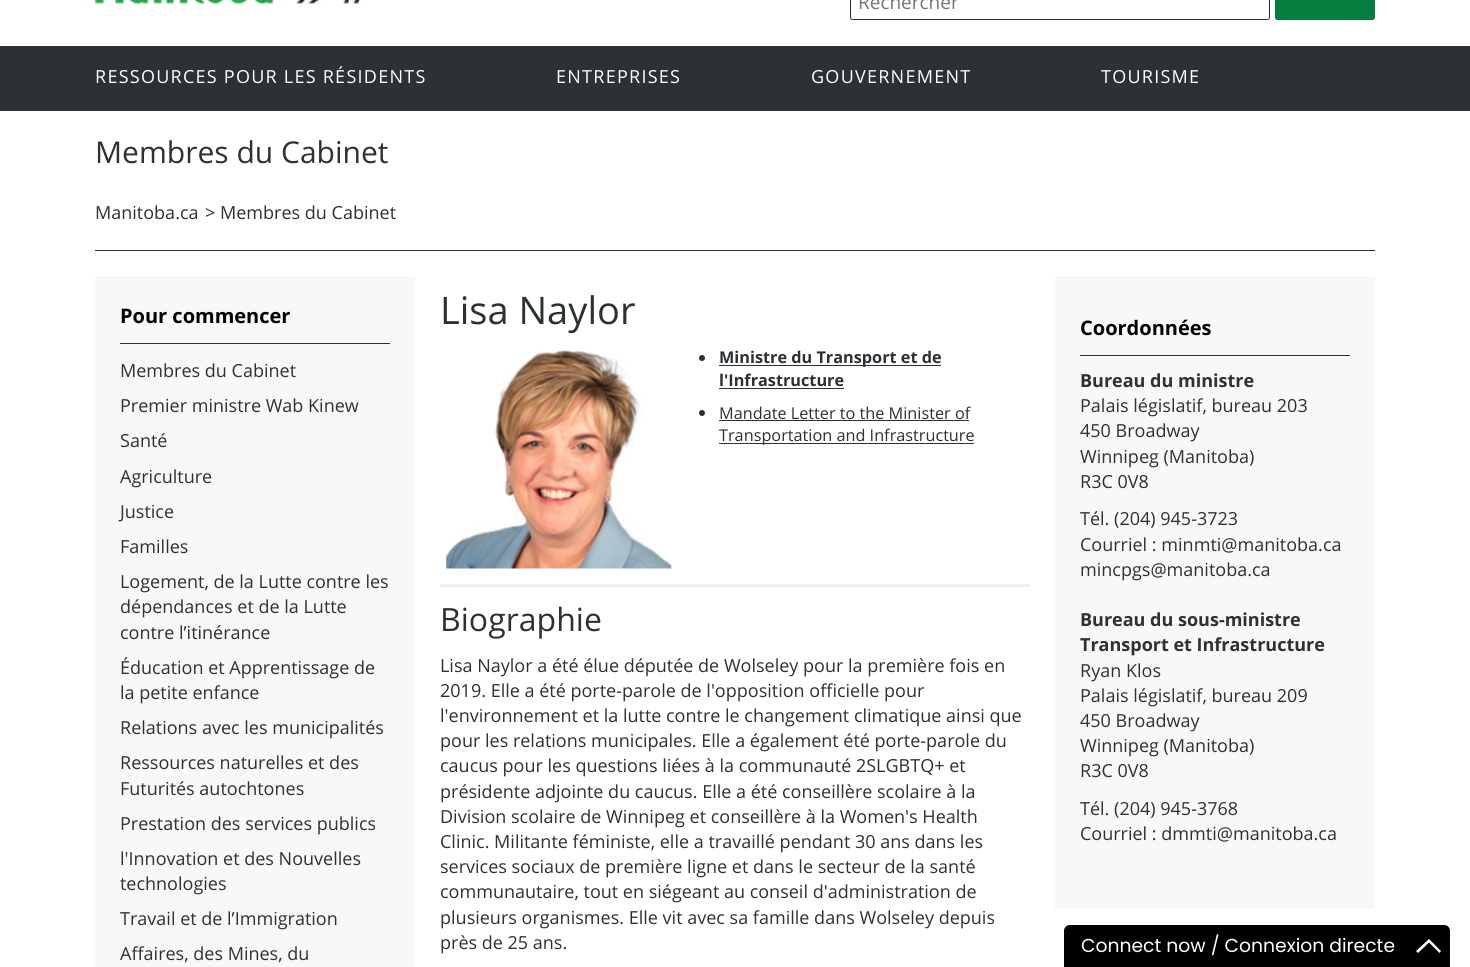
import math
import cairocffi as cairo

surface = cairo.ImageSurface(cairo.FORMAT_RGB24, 1470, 967)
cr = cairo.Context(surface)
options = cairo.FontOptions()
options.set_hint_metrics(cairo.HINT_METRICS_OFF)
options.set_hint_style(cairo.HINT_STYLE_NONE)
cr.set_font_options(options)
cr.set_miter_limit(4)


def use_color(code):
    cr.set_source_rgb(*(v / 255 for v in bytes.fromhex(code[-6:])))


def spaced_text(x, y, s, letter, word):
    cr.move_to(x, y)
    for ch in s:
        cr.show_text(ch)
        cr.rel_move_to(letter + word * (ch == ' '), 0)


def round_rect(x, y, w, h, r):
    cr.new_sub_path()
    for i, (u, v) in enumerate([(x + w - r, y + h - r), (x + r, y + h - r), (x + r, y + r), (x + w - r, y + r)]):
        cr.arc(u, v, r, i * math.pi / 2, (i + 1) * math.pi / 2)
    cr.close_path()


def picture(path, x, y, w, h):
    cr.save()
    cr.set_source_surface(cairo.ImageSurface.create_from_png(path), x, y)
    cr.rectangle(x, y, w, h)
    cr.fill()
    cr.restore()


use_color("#ffffff")
cr.paint()
picture("img1.png", 95, 0, 266, 4)
round_rect(850.5, -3.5, 419, 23, 2)
use_color("#2c3135")
cr.set_line_width(1)
cr.stroke()
cr.select_font_face("Open Sans")
cr.set_font_size(19)
use_color("#757575")
cr.move_to(858, 9)
cr.show_text("Rechercher")
use_color("#057d3e")
round_rect(1275, -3, 100, 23, 2.5)
cr.fill()
use_color("#2c3135")
cr.rectangle(0, 46, 1470, 65)
cr.fill()
cr.set_font_size(18)
use_color("#ffffff")
spaced_text(95, 83, "RESSOURCES POUR LES RÉSIDENTS", 1.25, 0)
spaced_text(556, 83, "ENTREPRISES", 1.25, 0)
spaced_text(811, 83, "GOUVERNEMENT", 1.25, 0)
spaced_text(1101, 83, "TOURISME", 1.25, 0)
cr.set_font_size(30)
use_color("#2c3135")
cr.move_to(95, 163)
cr.show_text("Membres du Cabinet")
cr.rectangle(95, 250, 1280, 1)
cr.fill()
cr.set_font_size(18)
cr.move_to(95, 219)
cr.show_text("Manitoba.ca")
cr.move_to(205, 219)
cr.show_text("> Membres du Cabinet")
use_color("#f8f8f8")
cr.rectangle(95, 276, 320, 691)
cr.fill()
use_color("#2c3135")
cr.rectangle(120, 343, 270, 1)
cr.fill()
cr.select_font_face("Open Sans", cairo.FONT_SLANT_NORMAL, cairo.FONT_WEIGHT_BOLD)
cr.set_font_size(20)
use_color("#000000")
cr.move_to(120, 323)
cr.show_text("Pour commencer")
cr.select_font_face("Open Sans")
cr.set_font_size(18)
use_color("#2c3135")
cr.move_to(120, 377)
cr.show_text("Membres du Cabinet")
cr.move_to(120, 412)
cr.show_text("Premier ministre Wab Kinew")
cr.move_to(120, 447)
cr.show_text("Santé")
cr.move_to(120, 483)
cr.show_text("Agriculture")
cr.move_to(120, 518)
cr.show_text("Justice")
cr.move_to(120, 553)
cr.show_text("Familles")
cr.move_to(120, 588)
cr.show_text("Logement, de la Lutte contre les")
cr.move_to(120, 613)
cr.show_text("dépendances et de la Lutte")
cr.move_to(120, 639)
cr.show_text("contre l’itinérance")
cr.move_to(120, 674)
cr.show_text("Éducation et Apprentissage de")
cr.move_to(120, 699)
cr.show_text("la petite enfance")
cr.move_to(120, 734)
cr.show_text("Relations avec les municipalités")
cr.move_to(120, 769)
cr.show_text("Ressources naturelles et des")
cr.move_to(120, 795)
cr.show_text("Futurités autochtones")
cr.move_to(120, 830)
cr.show_text("Prestation des services publics")
cr.move_to(120, 865)
cr.show_text("l'Innovation et des Nouvelles")
cr.move_to(120, 890)
cr.show_text("technologies")
cr.move_to(120, 925)
cr.show_text("Travail et de l’Immigration")
cr.move_to(120, 960)
cr.show_text("Affaires, des Mines, du")
cr.set_font_size(38)
cr.move_to(440, 324)
cr.show_text("Lisa Naylor")
picture("img2.png", 446, 349, 226, 220)
cr.arc(702, 358, 3, 0, 2 * math.pi)
cr.fill()
cr.rectangle(719, 365, 222, 1)
cr.fill()
cr.select_font_face("Open Sans", cairo.FONT_SLANT_NORMAL, cairo.FONT_WEIGHT_BOLD)
cr.set_font_size(16.25)
cr.move_to(719, 363)
cr.show_text("Ministre du Transport et de")
cr.move_to(719, 386)
cr.show_text("l'Infrastructure")
cr.rectangle(719, 388, 125, 1)
cr.fill()
cr.arc(702, 413, 3, 0, 2 * math.pi)
cr.fill()
cr.select_font_face("Open Sans")
cr.move_to(719, 419)
cr.show_text("Mandate Letter to the Minister of")
cr.rectangle(719, 420, 250, 1)
cr.fill()
cr.rectangle(719, 443, 255, 1)
cr.fill()
cr.move_to(719, 441)
cr.show_text("Transportation and Infrastructure")
use_color("#eeeeee")
cr.rectangle(440, 584, 590, 3)
cr.fill()
cr.set_font_size(32)
use_color("#2c3135")
cr.move_to(440, 631)
cr.show_text("Biographie")
cr.set_font_size(18)
cr.move_to(440, 672)
cr.show_text("Lisa Naylor a été élue députée de Wolseley pour la première fois en")
cr.move_to(440, 697)
cr.show_text("2019. Elle a été porte-parole de l'opposition officielle pour")
cr.move_to(440, 722)
cr.show_text("l'environnement et la lutte contre le changement climatique ainsi que")
cr.move_to(440, 747)
cr.show_text("pour les relations municipales. Elle a également été porte-parole du")
cr.move_to(440, 772)
cr.show_text("caucus pour les questions liées à la communauté 2SLGBTQ+ et")
cr.move_to(440, 798)
cr.show_text("présidente adjointe du caucus. Elle a été conseillère scolaire à la")
cr.move_to(440, 823)
cr.show_text("Division scolaire de Winnipeg et conseillère à la Women's Health")
cr.move_to(440, 848)
cr.show_text("Clinic. Militante féministe, elle a travaillé pendant 30 ans dans les")
cr.move_to(440, 873)
cr.show_text("services sociaux de première ligne et dans le secteur de la santé")
cr.move_to(440, 898)
cr.show_text("communautaire, tout en siégeant au conseil d'administration de")
cr.move_to(440, 924)
cr.show_text("plusieurs organismes. Elle vit avec sa famille dans Wolseley depuis")
cr.move_to(440, 949)
cr.show_text("près de 25 ans.")
use_color("#f8f8f8")
cr.rectangle(1055, 276, 320, 633)
cr.fill()
use_color("#2c3135")
cr.rectangle(1080, 355, 270, 1)
cr.fill()
cr.select_font_face("Open Sans", cairo.FONT_SLANT_NORMAL, cairo.FONT_WEIGHT_BOLD)
cr.set_font_size(20)
use_color("#000000")
cr.move_to(1080, 335)
cr.show_text("Coordonnées")
cr.set_font_size(18)
use_color("#2c3135")
cr.move_to(1080, 387)
cr.show_text("Bureau du ministre")
cr.select_font_face("Open Sans")
cr.move_to(1080, 412)
cr.show_text("Palais législatif, bureau 203")
cr.move_to(1080, 437)
cr.show_text("450 Broadway")
cr.move_to(1080, 463)
cr.show_text("Winnipeg (Manitoba)")
cr.move_to(1080, 488)
cr.show_text("R3C 0V8")
cr.move_to(1080, 525)
cr.show_text("Tél. (204) 945-3723")
cr.move_to(1080, 551)
cr.show_text("Courriel : minmti@manitoba.ca")
cr.move_to(1080, 576)
cr.show_text("mincpgs@manitoba.ca")
cr.select_font_face("Open Sans", cairo.FONT_SLANT_NORMAL, cairo.FONT_WEIGHT_BOLD)
cr.move_to(1080, 626)
cr.show_text("Bureau du sous-ministre")
cr.move_to(1080, 651)
cr.show_text("Transport et Infrastructure")
cr.select_font_face("Open Sans")
cr.move_to(1080, 677)
cr.show_text("Ryan Klos")
cr.move_to(1080, 702)
cr.show_text("Palais législatif, bureau 209")
cr.move_to(1080, 727)
cr.show_text("450 Broadway")
cr.move_to(1080, 752)
cr.show_text("Winnipeg (Manitoba)")
cr.move_to(1080, 777)
cr.show_text("R3C 0V8")
cr.move_to(1080, 815)
cr.show_text("Tél. (204) 945-3768")
cr.move_to(1080, 840)
cr.show_text("Courriel : dmmti@manitoba.ca")
use_color("#000000")
cr.new_path()
cr.move_to(1070, 925)
cr.line_to(1444, 925)
cr.curve_to(1447.5, 925, 1450, 927.5, 1450, 931)
cr.line_to(1450, 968)
cr.line_to(1064, 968)
cr.line_to(1064, 931)
cr.curve_to(1064, 927.5, 1066.5, 925, 1070, 925)
cr.close_path()
cr.fill()
cr.select_font_face("Poppins")
cr.set_font_size(18.75)
use_color("#ffffff")
cr.move_to(1081, 952)
cr.show_text("Connect now / Connexion directe")
cr.new_path()
cr.move_to(1429, 939)
cr.line_to(1441, 951)
cr.line_to(1439.5, 953)
cr.line_to(1429, 942.5)
cr.line_to(1418, 953)
cr.line_to(1416, 951)
cr.close_path()
cr.fill()
surface.write_to_png("result.png")
